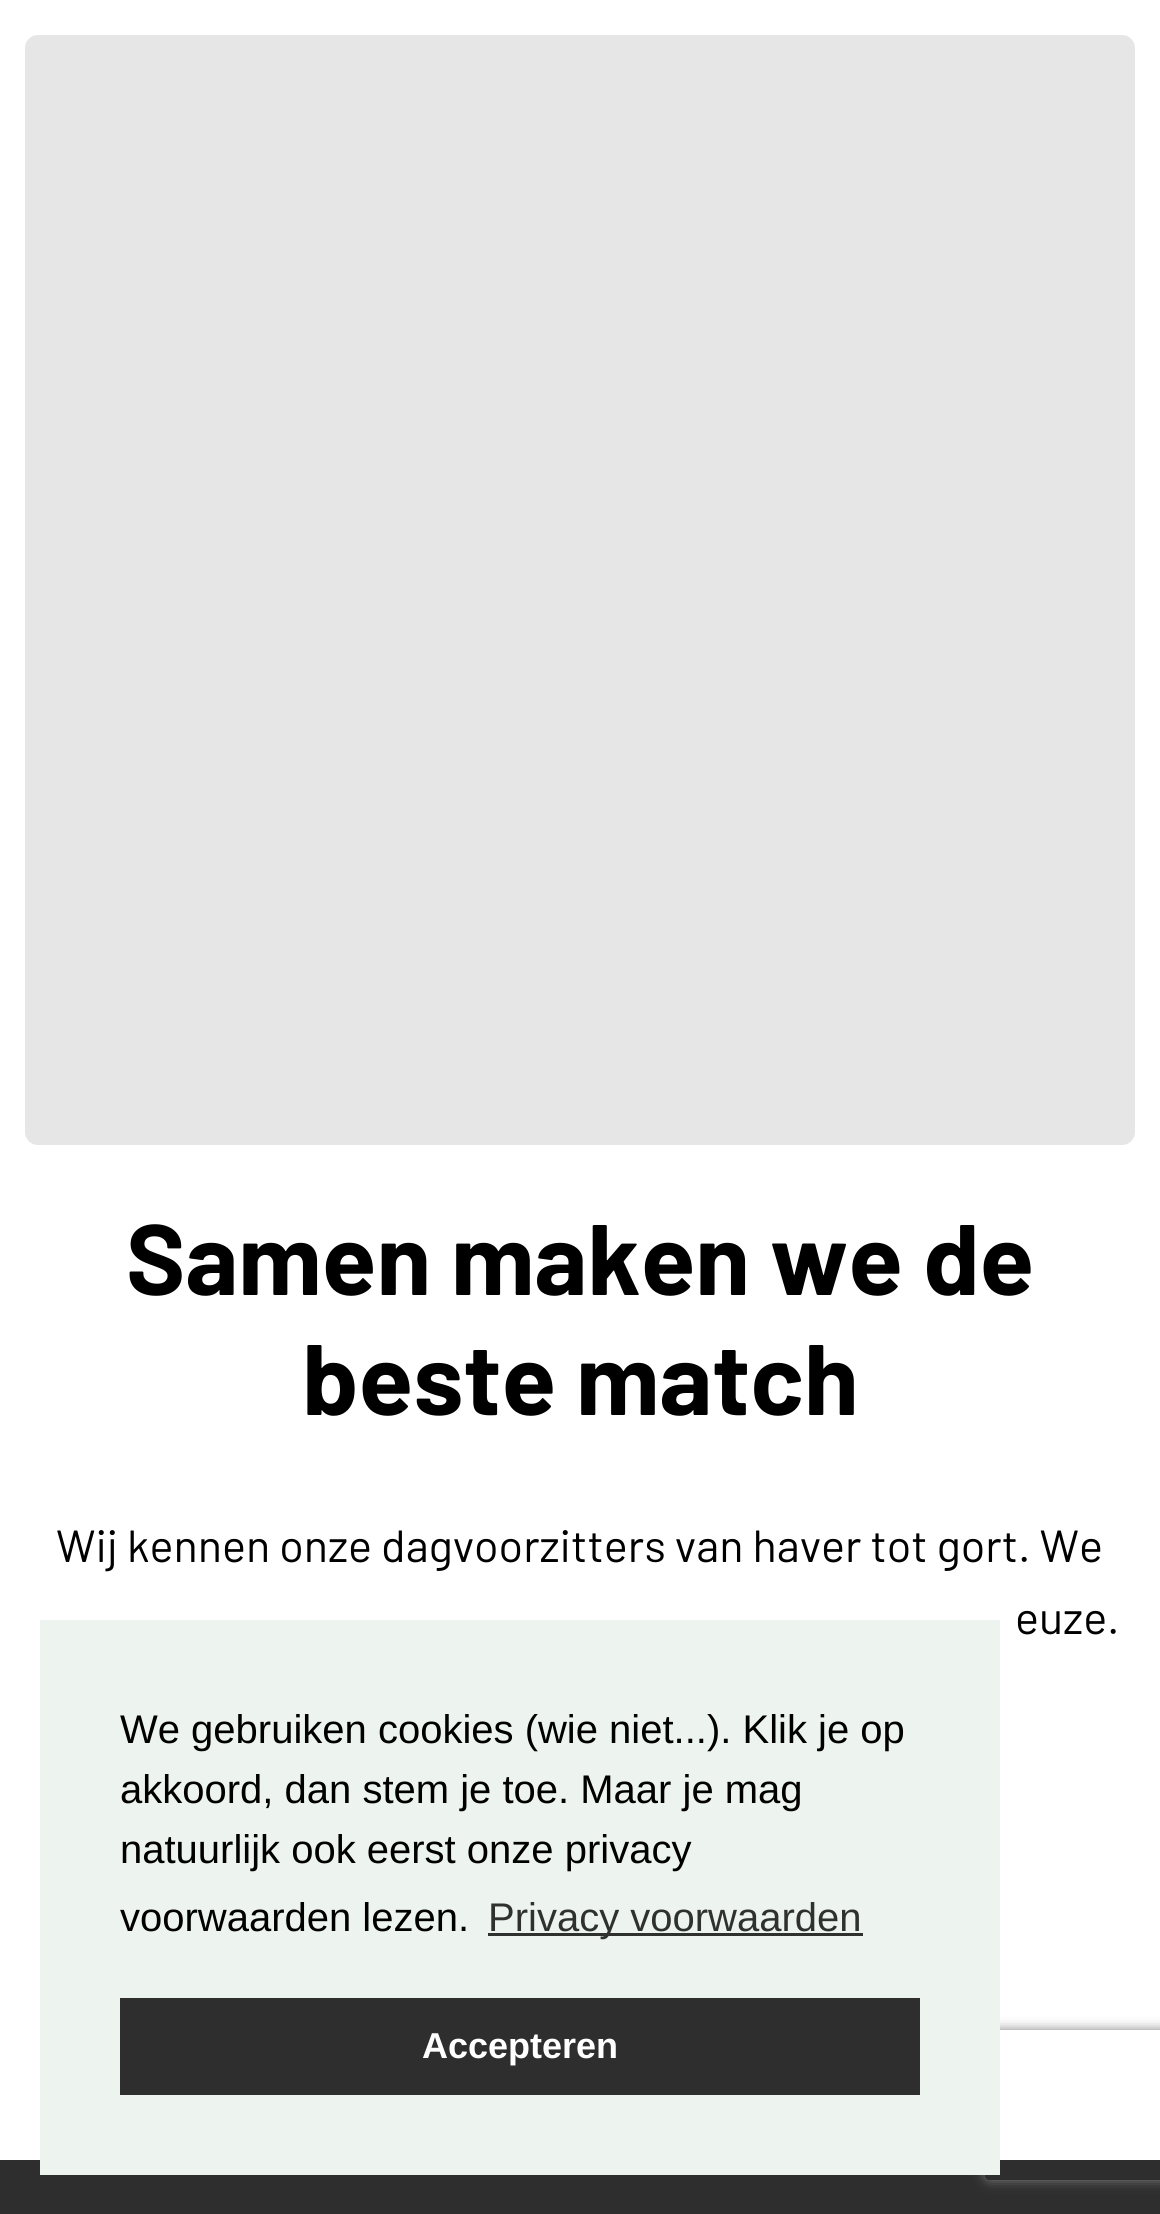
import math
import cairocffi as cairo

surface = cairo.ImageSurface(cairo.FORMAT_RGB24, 1160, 2214)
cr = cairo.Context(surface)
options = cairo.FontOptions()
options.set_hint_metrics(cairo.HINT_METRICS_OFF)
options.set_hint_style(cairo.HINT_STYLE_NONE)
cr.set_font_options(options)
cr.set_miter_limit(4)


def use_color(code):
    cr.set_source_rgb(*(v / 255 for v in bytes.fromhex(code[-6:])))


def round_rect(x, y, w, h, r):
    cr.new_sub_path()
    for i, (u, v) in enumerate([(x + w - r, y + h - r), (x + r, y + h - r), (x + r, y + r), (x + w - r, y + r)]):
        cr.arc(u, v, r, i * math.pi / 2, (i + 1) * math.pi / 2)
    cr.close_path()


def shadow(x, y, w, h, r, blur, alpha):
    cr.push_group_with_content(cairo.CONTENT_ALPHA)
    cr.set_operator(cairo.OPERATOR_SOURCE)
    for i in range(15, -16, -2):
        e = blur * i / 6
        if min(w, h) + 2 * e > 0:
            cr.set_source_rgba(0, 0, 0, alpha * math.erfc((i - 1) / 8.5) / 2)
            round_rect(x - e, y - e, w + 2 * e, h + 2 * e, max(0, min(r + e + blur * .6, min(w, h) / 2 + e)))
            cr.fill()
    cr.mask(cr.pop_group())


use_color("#2e2e2e")
cr.paint()
use_color("#ffffff")
cr.rectangle(0, 0, 1160, 2160)
cr.fill()
use_color("#e6e6e6")
round_rect(25, 35, 1110, 1110, 13)
cr.fill()
cr.select_font_face("Barlow", cairo.FONT_SLANT_NORMAL, cairo.FONT_WEIGHT_BOLD)
cr.set_font_size(100)
use_color("#000000")
cr.move_to(126, 1295)
cr.show_text("Samen maken we de")
cr.move_to(302, 1415)
cr.show_text("beste match")
cr.select_font_face("Barlow")
cr.set_font_size(45)
cr.move_to(56, 1562)
cr.show_text("Wij kennen onze dagvoorzitters van haver tot gort. We")
cr.move_to(1015, 1634)
cr.show_text("euze.")
cr.save()
cr.set_fill_rule(cairo.FILL_RULE_EVEN_ODD)
cr.new_path()
cr.move_to(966, 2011)
cr.line_to(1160, 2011)
cr.line_to(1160, 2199)
cr.line_to(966, 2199)
cr.close_path()
cr.move_to(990, 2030)
cr.line_to(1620, 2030)
cr.curve_to(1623, 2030, 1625, 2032, 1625, 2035)
cr.line_to(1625, 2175)
cr.curve_to(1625, 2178, 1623, 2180, 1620, 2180)
cr.line_to(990, 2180)
cr.curve_to(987, 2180, 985, 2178, 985, 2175)
cr.line_to(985, 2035)
cr.curve_to(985, 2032, 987, 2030, 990, 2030)
cr.close_path()
cr.clip()
use_color("#808080")
shadow(985, 2030, 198, 150, 5, 6, 1)
cr.restore()
use_color("#edf3ef")
cr.rectangle(40, 1620, 960, 555)
cr.fill()
cr.select_font_face("Liberation Sans")
cr.set_font_size(40)
use_color("#000000")
cr.move_to(120, 1743)
cr.show_text("We gebruiken cookies (wie niet...). Klik je op")
cr.move_to(120, 1803)
cr.show_text("akkoord, dan stem je toe. Maar je mag")
cr.move_to(120, 1863)
cr.show_text("natuurlijk ook eerst onze privacy")
cr.move_to(120, 1931)
cr.show_text("voorwaarden lezen.")
use_color("#2f3130")
cr.rectangle(488, 1933, 375, 3)
cr.fill()
cr.move_to(488, 1931)
cr.show_text("Privacy voorwaarden")
use_color("#2e2e2e")
cr.rectangle(120, 1998, 800, 97)
cr.fill()
cr.select_font_face("Liberation Sans", cairo.FONT_SLANT_NORMAL, cairo.FONT_WEIGHT_BOLD)
cr.set_font_size(36)
use_color("#ffffff")
cr.move_to(422, 2058)
cr.show_text("Accepteren")
surface.write_to_png("result.png")
